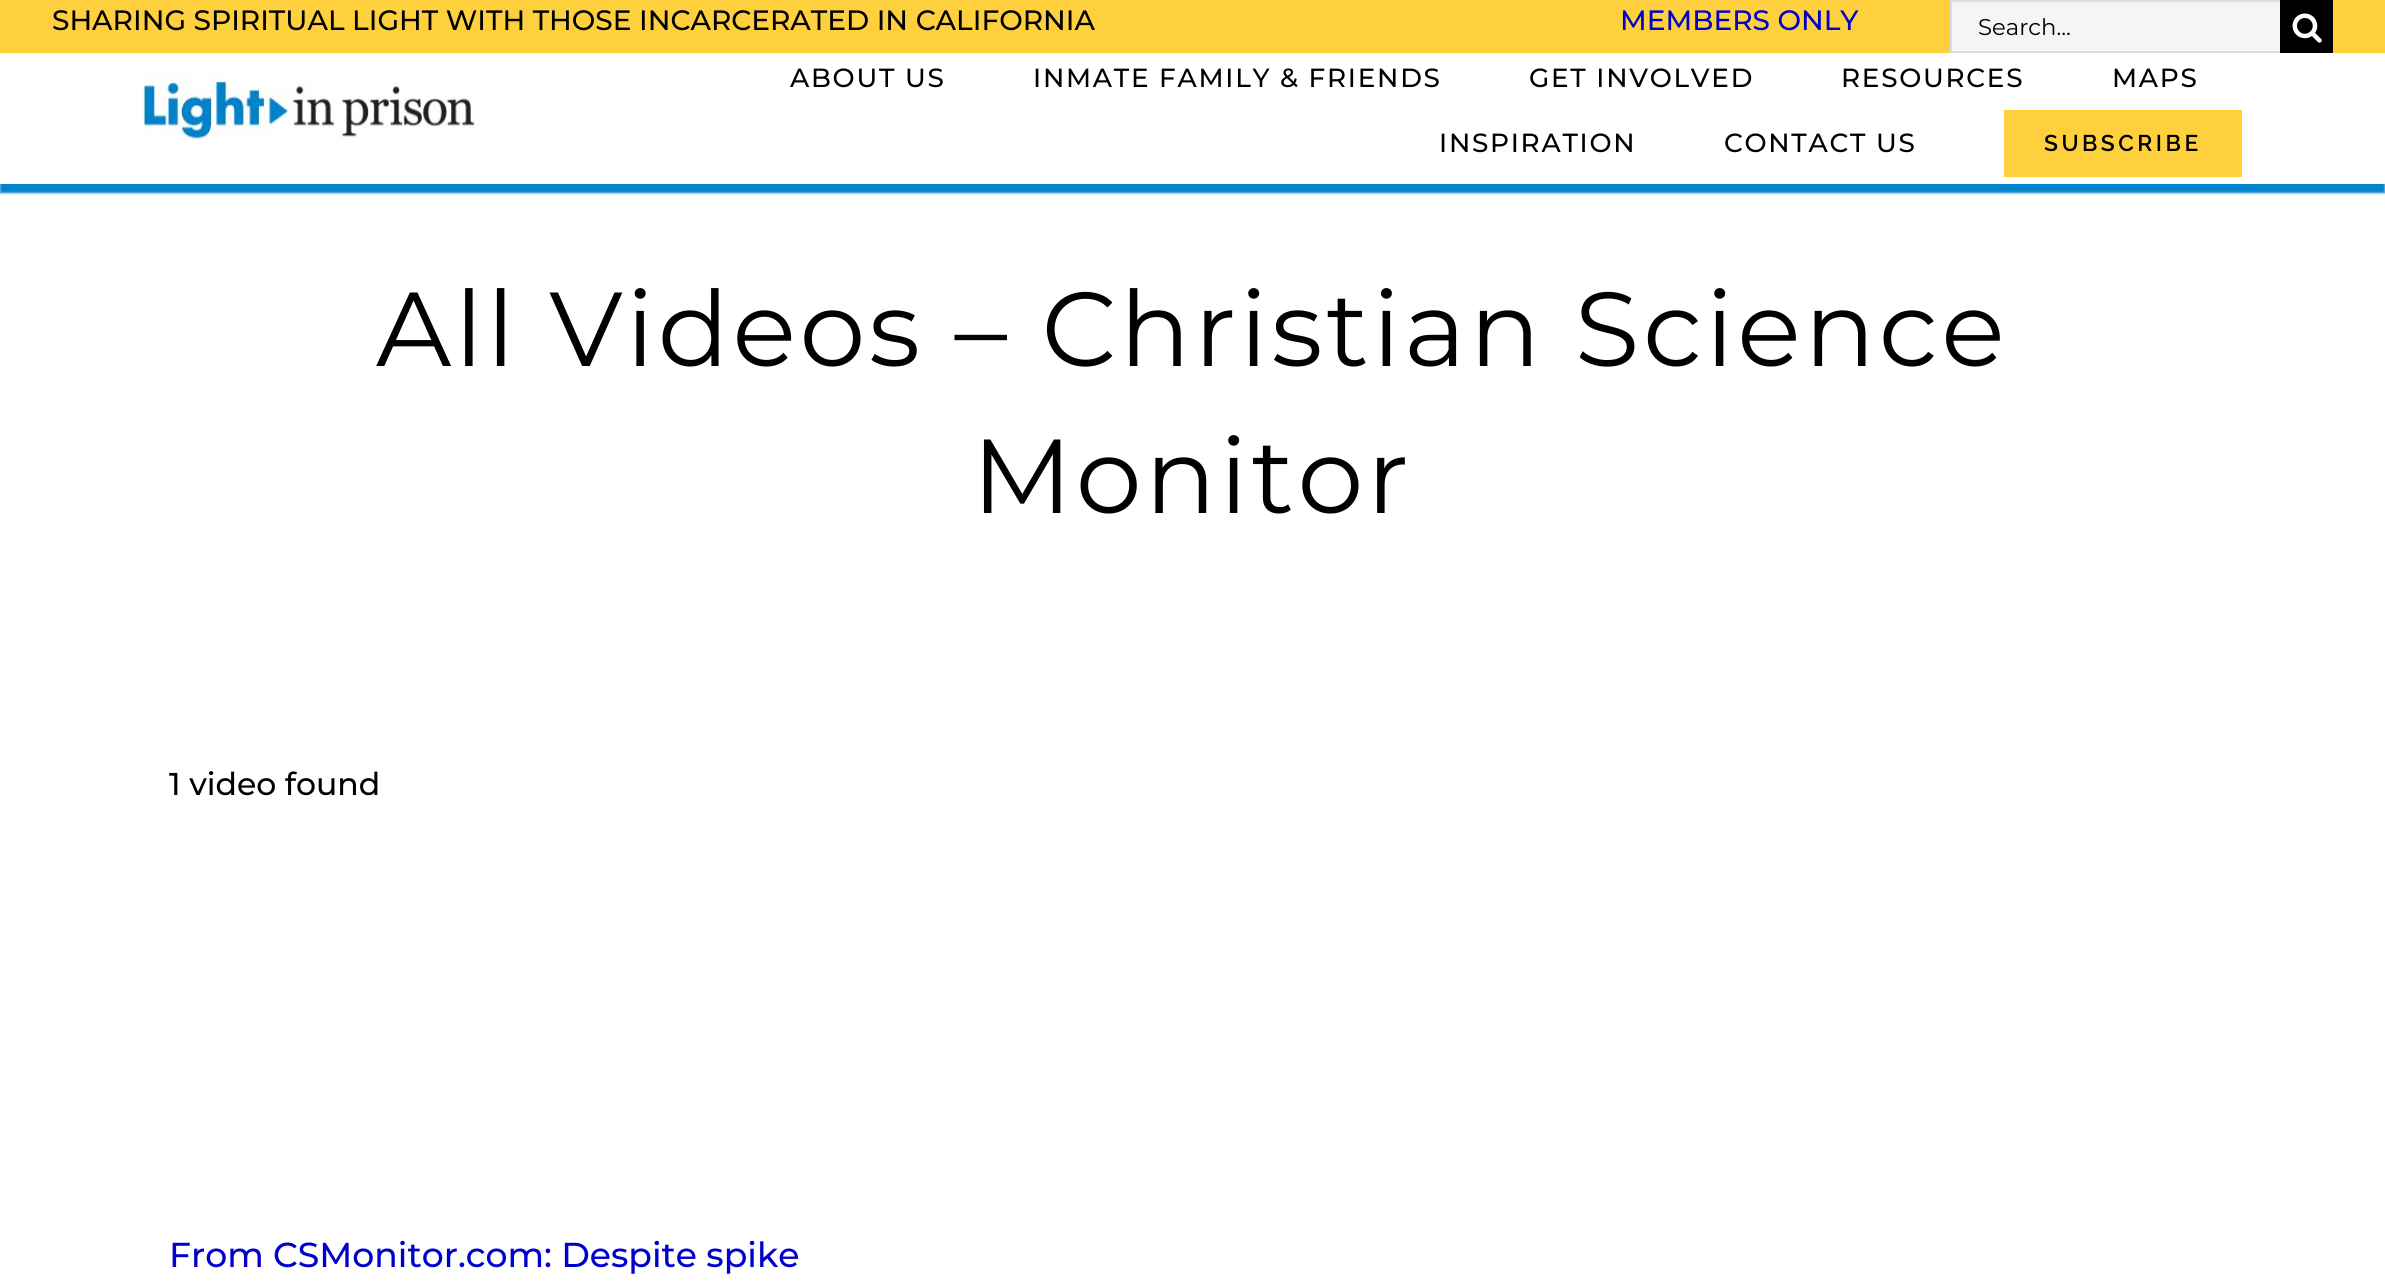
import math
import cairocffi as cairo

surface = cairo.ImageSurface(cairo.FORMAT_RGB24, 2385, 1285)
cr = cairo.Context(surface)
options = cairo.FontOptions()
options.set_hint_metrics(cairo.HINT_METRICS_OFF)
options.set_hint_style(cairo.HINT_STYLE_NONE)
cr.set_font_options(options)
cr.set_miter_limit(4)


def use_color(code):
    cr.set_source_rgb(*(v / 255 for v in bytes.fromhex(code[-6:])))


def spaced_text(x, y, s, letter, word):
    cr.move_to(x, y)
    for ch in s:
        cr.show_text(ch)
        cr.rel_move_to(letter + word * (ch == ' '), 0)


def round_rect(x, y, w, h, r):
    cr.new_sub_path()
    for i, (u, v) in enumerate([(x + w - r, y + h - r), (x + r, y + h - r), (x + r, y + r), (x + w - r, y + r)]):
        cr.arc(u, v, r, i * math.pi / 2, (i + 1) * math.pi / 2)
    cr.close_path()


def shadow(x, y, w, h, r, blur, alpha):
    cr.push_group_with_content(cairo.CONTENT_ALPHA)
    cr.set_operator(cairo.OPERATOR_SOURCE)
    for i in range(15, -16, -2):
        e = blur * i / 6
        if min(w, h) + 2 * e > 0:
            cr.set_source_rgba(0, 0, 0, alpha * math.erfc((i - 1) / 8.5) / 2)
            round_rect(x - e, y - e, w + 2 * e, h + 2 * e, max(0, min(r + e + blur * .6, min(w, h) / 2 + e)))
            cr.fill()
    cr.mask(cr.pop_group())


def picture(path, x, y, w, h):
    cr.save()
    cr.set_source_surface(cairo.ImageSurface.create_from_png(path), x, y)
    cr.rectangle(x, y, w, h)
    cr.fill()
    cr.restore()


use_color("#ffffff")
cr.paint()
use_color("#fed03d")
cr.rectangle(0, 0, 2385, 53)
cr.fill()
cr.select_font_face("Montserrat Medium")
cr.set_font_size(28)
use_color("#000000")
cr.move_to(52, 30)
cr.show_text("SHARING SPIRITUAL LIGHT WITH THOSE INCARCERATED IN CALIFORNIA")
use_color("#0000cd")
cr.move_to(1620, 30)
cr.show_text("MEMBERS ONLY")
use_color("#f5f5f5")
cr.rectangle(1952, 2, 328, 49)
cr.fill()
use_color("#dddddd")
cr.rectangle(1950, 0, 330, 2)
cr.fill()
cr.rectangle(1950, 51, 330, 2)
cr.fill()
cr.rectangle(1950, 0, 2, 53)
cr.fill()
cr.select_font_face("Montserrat")
cr.set_font_size(22.75)
use_color("#000000")
cr.move_to(1978, 35)
cr.show_text("Search...")
cr.rectangle(2280, 0, 53, 53)
cr.fill()
picture("img1.png", 2292, 13, 30, 30)
use_color("#0084cd")
shadow(0, 61, 2385, 132, 0, 1, 1)
use_color("#ffffff")
cr.rectangle(0, 59, 2385, 125)
cr.fill()
picture("img2.png", 143, 72, 332, 68)
cr.select_font_face("Montserrat Medium")
cr.set_font_size(26.25)
use_color("#000000")
spaced_text(790, 87, "ABOUT US", 1.75, 0)
spaced_text(1033, 87, "INMATE FAMILY & FRIENDS", 1.75, 0)
spaced_text(1529, 87, "GET INVOLVED", 1.75, 0)
spaced_text(1841, 87, "RESOURCES", 1.75, 0)
spaced_text(2112, 87, "MAPS", 1.75, 0)
spaced_text(1439, 152, "INSPIRATION", 1.75, 0)
spaced_text(1724, 152, "CONTACT US", 1.75, 0)
use_color("#fed03d")
cr.rectangle(2004, 110, 238, 67)
cr.fill()
cr.select_font_face("Raleway SemiBold")
cr.set_font_size(22.75)
use_color("#000000")
spaced_text(2044, 151, "SUBSCRIBE", 3.5, 0)
cr.select_font_face("Montserrat")
cr.set_font_size(105)
spaced_text(376, 366, "All Videos – Christian Science", 3.5, 0)
spaced_text(972, 513, "Monitor", 3.5, 0)
cr.select_font_face("Montserrat Medium")
cr.set_font_size(31.5)
cr.move_to(169, 795)
cr.show_text("1 video found")
cr.set_font_size(34.6)
use_color("#0000cd")
cr.move_to(169, 1267)
cr.show_text("From CSMonitor.com: Despite spike")
surface.write_to_png("result.png")
